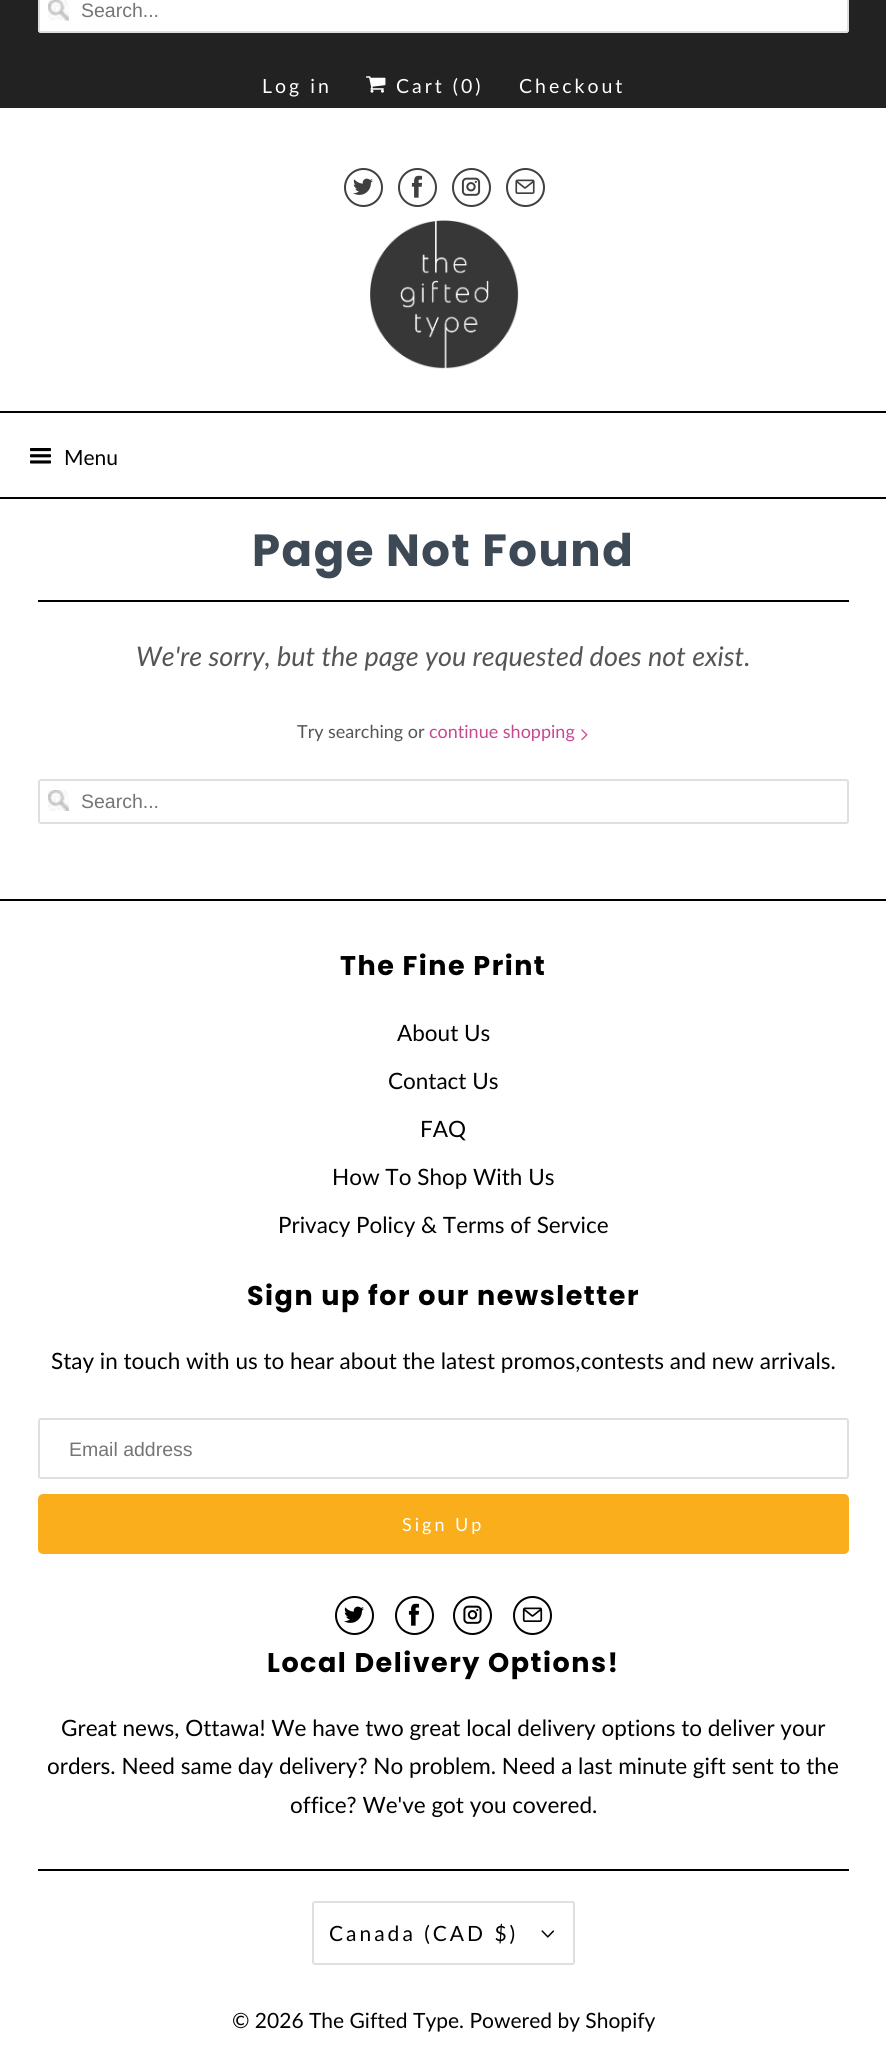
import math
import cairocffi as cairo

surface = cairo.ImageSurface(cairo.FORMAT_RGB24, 886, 2058)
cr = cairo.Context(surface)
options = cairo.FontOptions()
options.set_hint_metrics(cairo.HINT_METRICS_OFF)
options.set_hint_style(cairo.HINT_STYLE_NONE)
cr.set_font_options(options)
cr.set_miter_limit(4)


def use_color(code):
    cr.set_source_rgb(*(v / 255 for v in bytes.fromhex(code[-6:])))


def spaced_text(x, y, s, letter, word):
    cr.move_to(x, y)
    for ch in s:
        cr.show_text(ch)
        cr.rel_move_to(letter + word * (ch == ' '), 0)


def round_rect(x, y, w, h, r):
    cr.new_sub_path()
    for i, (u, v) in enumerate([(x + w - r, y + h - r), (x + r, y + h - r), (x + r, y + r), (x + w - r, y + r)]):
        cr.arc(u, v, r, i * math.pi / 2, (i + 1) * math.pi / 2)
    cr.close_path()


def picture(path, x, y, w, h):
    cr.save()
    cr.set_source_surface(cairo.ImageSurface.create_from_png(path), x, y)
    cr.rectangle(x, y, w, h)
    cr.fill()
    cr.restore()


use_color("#ffffff")
cr.paint()
use_color("#222222")
cr.rectangle(0, 0, 886, 108)
cr.fill()
use_color("#ffffff")
round_rect(38, -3, 811, 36, 3)
cr.fill()
picture("img1.png", 48, 0, 21, 21)
round_rect(39, -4, 809, 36, 2)
use_color("#dfdfdf")
cr.stroke()
cr.select_font_face("Liberation Sans")
cr.set_font_size(19.5)
use_color("#757575")
cr.move_to(81, 17)
cr.show_text("Search...")
cr.select_font_face("Lato")
use_color("#ffffff")
spaced_text(262, 93, "Log in", 3, 0)
picture("img2.png", 366, 76, 20, 17)
spaced_text(396, 93, "Cart (0)", 3, 0)
spaced_text(519, 93, "Checkout", 3, 0)
cr.new_path()
cr.arc(363.5, 187.5, 18.5, 0, 2 * math.pi)
use_color("#404040")
cr.stroke()
picture("img3.png", 353, 178, 20, 17)
cr.arc(417.5, 187.5, 18.5, 0, 2 * math.pi)
cr.stroke()
picture("img4.png", 411, 175, 12, 23)
cr.arc(471.5, 187.5, 18.5, 0, 2 * math.pi)
cr.stroke()
picture("img5.png", 461, 177, 20, 19)
cr.arc(525.5, 187.5, 18.5, 0, 2 * math.pi)
cr.stroke()
picture("img6.png", 515, 179, 20, 15)
picture("img7.png", 370, 220, 149, 149)
use_color("#020000")
cr.rectangle(0, 411, 886, 2)
cr.fill()
cr.rectangle(0, 497, 886, 2)
cr.fill()
picture("img8.png", 30, 448, 21, 16)
cr.set_font_size(21)
use_color("#000000")
cr.move_to(64, 465)
cr.show_text("Menu")
use_color("#020000")
cr.rectangle(38, 600, 811, 2)
cr.fill()
cr.select_font_face("Poppins", cairo.FONT_SLANT_NORMAL, cairo.FONT_WEIGHT_BOLD)
cr.set_font_size(45)
use_color("#3d4a55")
spaced_text(252, 566, "Page Not Found", 1.5, 0)
cr.select_font_face("Lato", cairo.FONT_SLANT_ITALIC)
cr.set_font_size(27)
use_color("#555555")
cr.move_to(136, 666)
cr.show_text("We're sorry, but the page you requested does not exist.")
cr.select_font_face("Lato")
cr.set_font_size(18)
cr.move_to(297, 738)
cr.show_text("Try searching or")
use_color("#c64891")
cr.move_to(429, 738)
cr.show_text("continue shopping")
picture("img9.png", 581, 729, 7, 12)
picture("img10.png", 48, 790, 21, 21)
round_rect(39, 780, 809, 43, 2)
use_color("#dfdfdf")
cr.stroke()
cr.select_font_face("Liberation Sans")
cr.set_font_size(19.5)
use_color("#757575")
cr.move_to(81, 808)
cr.show_text("Search...")
use_color("#000000")
cr.rectangle(0, 899, 886, 2)
cr.fill()
cr.select_font_face("Poppins", cairo.FONT_SLANT_NORMAL, cairo.FONT_WEIGHT_BOLD)
cr.set_font_size(27)
spaced_text(340, 975, "The Fine Print", 1.5, 0)
cr.select_font_face("Lato")
cr.set_font_size(22.5)
cr.move_to(397, 1041)
cr.show_text("About Us")
cr.move_to(388, 1089)
cr.show_text("Contact Us")
cr.move_to(420, 1137)
cr.show_text("FAQ")
cr.move_to(332, 1185)
cr.show_text("How To Shop With Us")
cr.move_to(278, 1233)
cr.show_text("Privacy Policy & Terms of Service")
cr.select_font_face("Poppins", cairo.FONT_SLANT_NORMAL, cairo.FONT_WEIGHT_BOLD)
cr.set_font_size(27)
spaced_text(247, 1305, "Sign up for our newsletter", 1.5, 0)
cr.select_font_face("Lato")
cr.set_font_size(22.5)
cr.move_to(51, 1369)
cr.show_text("Stay in touch with us to hear about the latest promos,contests and new arrivals.")
round_rect(39, 1419, 809, 59, 2)
use_color("#dfdfdf")
cr.stroke()
cr.select_font_face("Liberation Sans")
cr.set_font_size(19.5)
use_color("#757575")
cr.move_to(69, 1456)
cr.show_text("Email address")
use_color("#faae1c")
round_rect(39, 1495, 809, 58, 4)
cr.fill_preserve()
cr.stroke()
cr.select_font_face("Lato")
cr.set_font_size(18)
use_color("#ffffff")
spaced_text(402, 1531, "Sign Up", 3, 0)
cr.new_path()
cr.arc(354.5, 1615.5, 18.5, 0, 2 * math.pi)
use_color("#000000")
cr.stroke()
picture("img11.png", 344, 1606, 20, 17)
cr.arc(414.5, 1615.5, 18.5, 0, 2 * math.pi)
cr.stroke()
picture("img12.png", 408, 1603, 12, 23)
cr.arc(472.5, 1615.5, 18.5, 0, 2 * math.pi)
cr.stroke()
picture("img13.png", 463, 1605, 19, 19)
cr.arc(532.5, 1615.5, 18.5, 0, 2 * math.pi)
cr.stroke()
picture("img14.png", 522, 1607, 21, 15)
cr.select_font_face("Poppins", cairo.FONT_SLANT_NORMAL, cairo.FONT_WEIGHT_BOLD)
cr.set_font_size(27)
spaced_text(267, 1672, "Local Delivery Options!", 1.5, 0)
cr.select_font_face("Lato")
cr.set_font_size(22.5)
cr.move_to(61, 1736)
cr.show_text("Great news, Ottawa! We have two great local delivery options to deliver your")
cr.move_to(47, 1774)
cr.show_text("orders. Need same day delivery? No problem. Need a last minute gift sent to the")
cr.move_to(290, 1813)
cr.show_text("office? We've got you covered.")
cr.rectangle(38, 1869, 811, 2)
cr.fill()
round_rect(313, 1902, 261, 62, 2)
use_color("#dfdfdf")
cr.stroke()
cr.set_font_size(21)
use_color("#000000")
spaced_text(329, 1941, "Canada (CAD $)", 3, 0)
picture("img15.png", 541, 1930, 13, 8)
cr.move_to(232, 2028)
cr.show_text("© 2026 The Gifted Type. Powered by Shopify")
surface.write_to_png("result.png")
